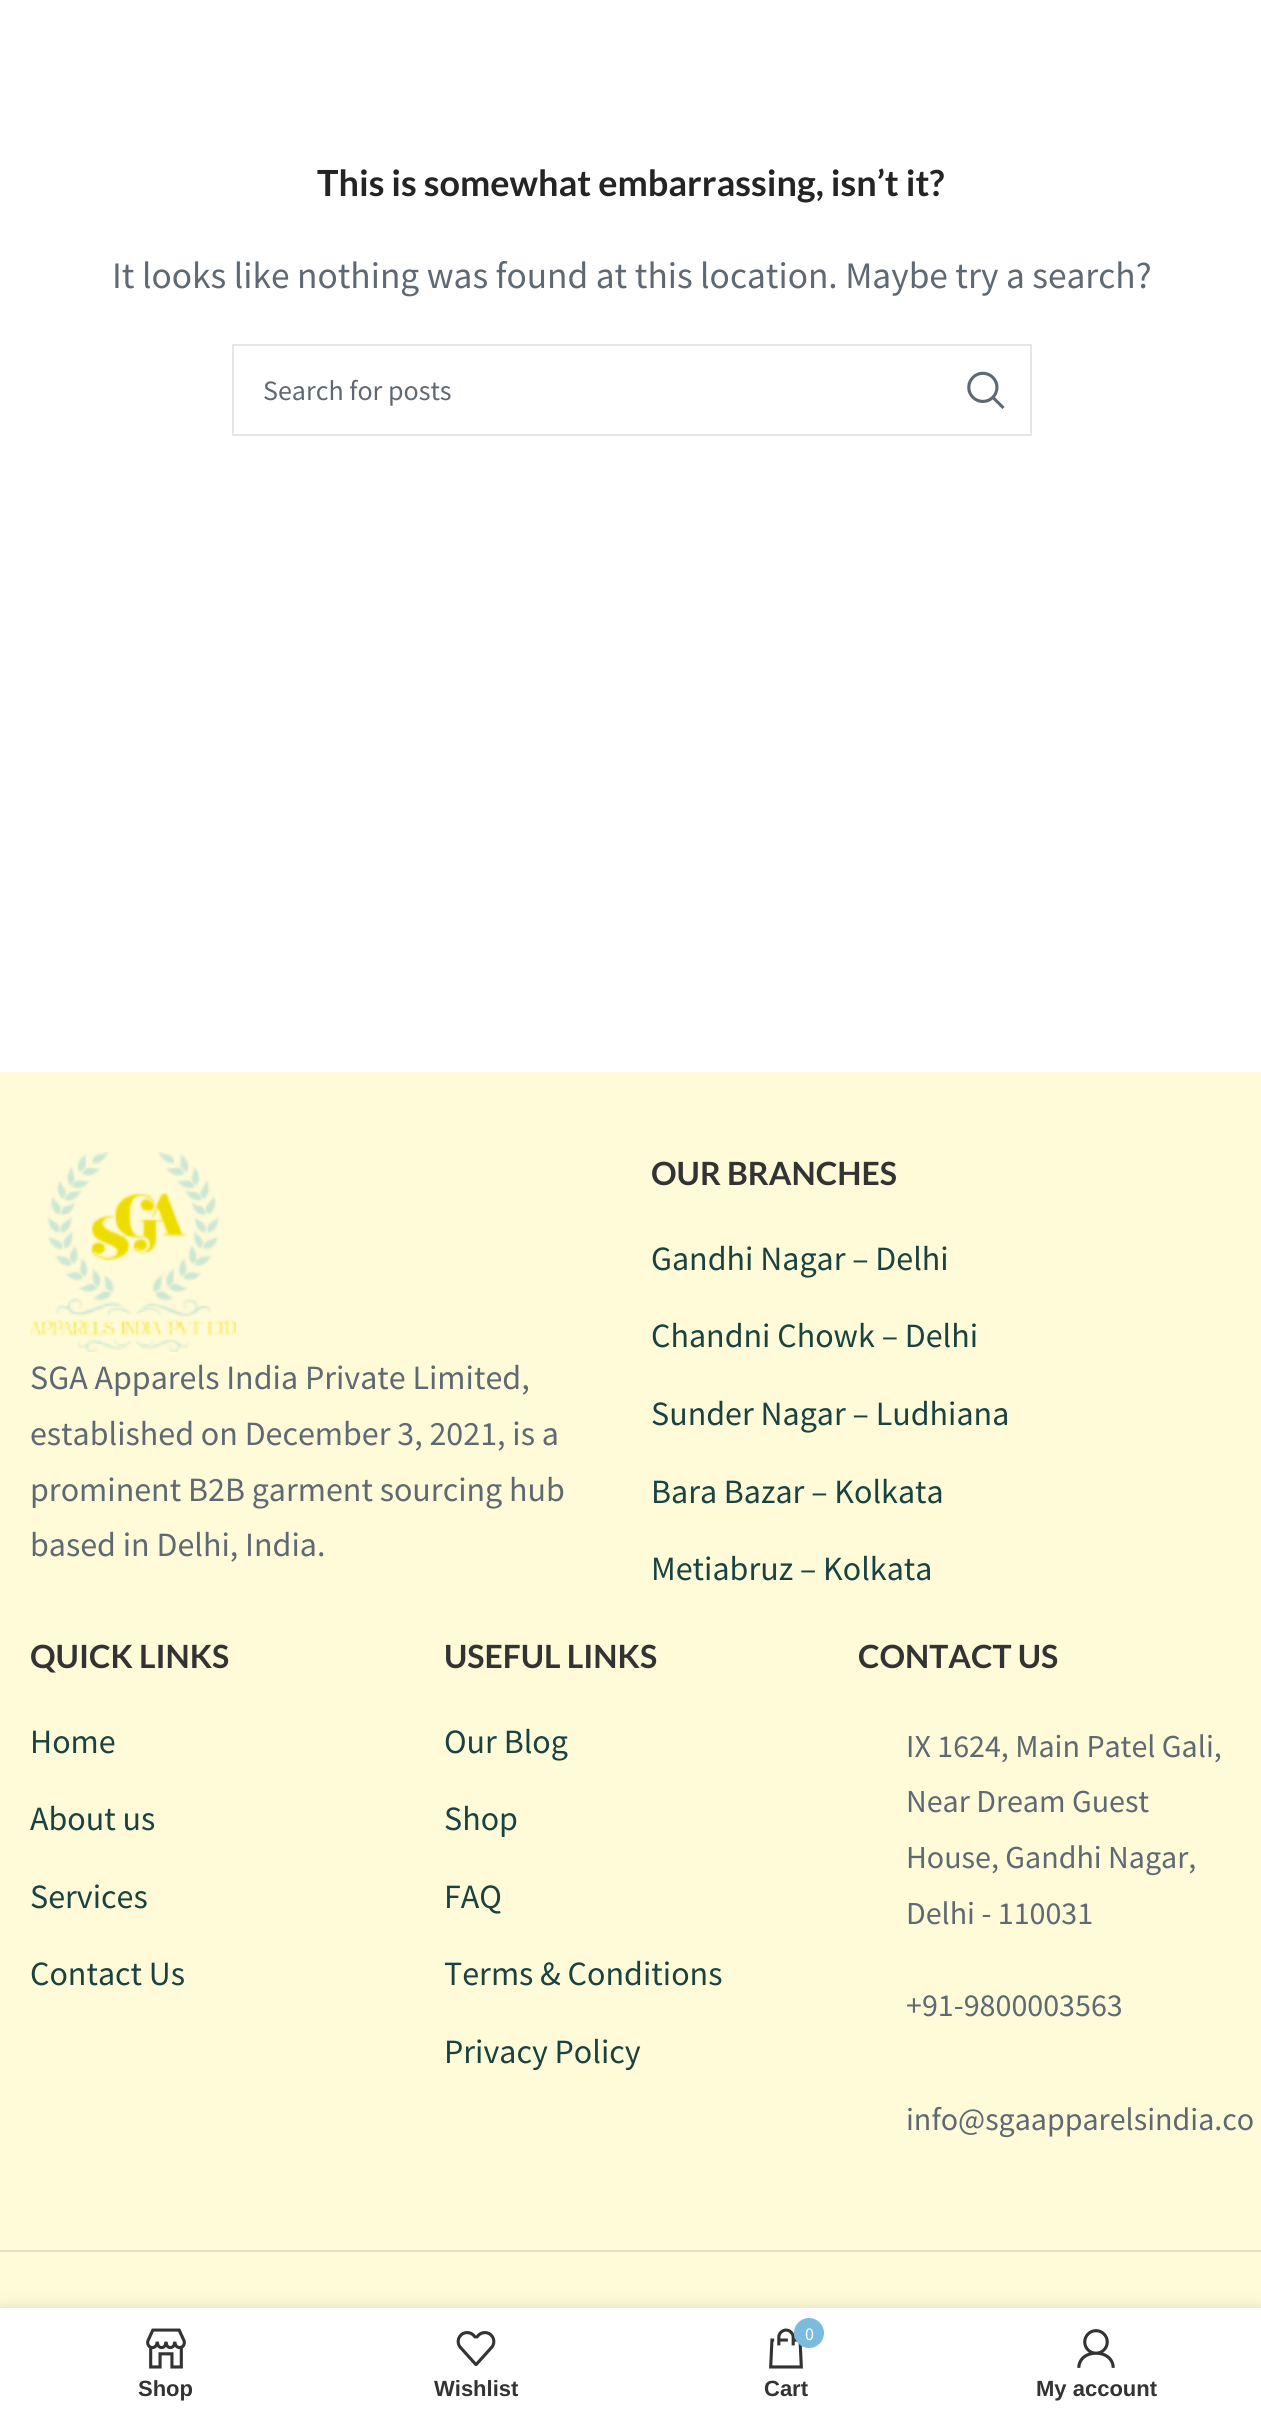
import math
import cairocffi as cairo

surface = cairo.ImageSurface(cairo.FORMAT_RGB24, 1261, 2417)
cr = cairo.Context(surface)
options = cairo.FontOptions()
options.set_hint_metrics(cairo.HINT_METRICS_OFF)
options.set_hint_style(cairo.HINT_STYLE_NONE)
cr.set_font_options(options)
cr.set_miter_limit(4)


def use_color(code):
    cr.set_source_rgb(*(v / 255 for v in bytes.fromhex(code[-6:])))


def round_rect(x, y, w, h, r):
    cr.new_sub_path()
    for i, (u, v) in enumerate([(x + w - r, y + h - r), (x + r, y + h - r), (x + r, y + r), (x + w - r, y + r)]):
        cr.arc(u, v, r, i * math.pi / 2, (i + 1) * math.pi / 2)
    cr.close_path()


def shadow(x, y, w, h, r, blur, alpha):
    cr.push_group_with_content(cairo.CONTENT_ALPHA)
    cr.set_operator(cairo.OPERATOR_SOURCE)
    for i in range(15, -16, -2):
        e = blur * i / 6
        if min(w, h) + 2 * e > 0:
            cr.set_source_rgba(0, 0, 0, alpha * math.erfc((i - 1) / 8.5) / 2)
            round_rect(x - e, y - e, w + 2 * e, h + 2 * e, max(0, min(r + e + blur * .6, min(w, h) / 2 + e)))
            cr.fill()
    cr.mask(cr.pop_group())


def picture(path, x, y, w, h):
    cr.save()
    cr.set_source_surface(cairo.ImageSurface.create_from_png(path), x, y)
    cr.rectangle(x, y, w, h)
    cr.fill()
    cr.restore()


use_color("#ffffff")
cr.paint()
cr.select_font_face("Lato", cairo.FONT_SLANT_NORMAL, cairo.FONT_WEIGHT_BOLD)
cr.set_font_size(36)
use_color("#242424")
cr.move_to(317, 196)
cr.show_text("This is somewhat embarrassing, isn’t it?")
cr.select_font_face("Source Sans Pro")
cr.set_font_size(37.4)
use_color("#5f6973")
cr.move_to(112, 288)
cr.show_text("It looks like nothing was found at this location. Maybe try a search?")
cr.rectangle(233, 345, 798, 90)
use_color("#e6e6e6")
cr.stroke()
cr.set_font_size(28)
use_color("#5f6973")
cr.move_to(263, 400)
cr.show_text("Search for posts")
picture("img1.png", 967, 371, 38, 38)
use_color("#fffad7")
cr.rectangle(0, 1072, 1261, 1236)
cr.fill()
picture("img2.png", 30, 1152, 206, 200)
cr.set_font_size(34)
use_color("#5f6973")
cr.move_to(30, 1389)
cr.show_text("SGA Apparels India Private Limited,")
cr.move_to(30, 1445)
cr.show_text("established on December 3, 2021, is a")
cr.move_to(30, 1501)
cr.show_text("prominent B2B garment sourcing hub")
cr.move_to(30, 1556)
cr.show_text("based in Delhi, India.")
cr.select_font_face("Lato", cairo.FONT_SLANT_NORMAL, cairo.FONT_WEIGHT_BOLD)
cr.set_font_size(32)
use_color("#333333")
cr.move_to(651, 1185)
cr.show_text("OUR BRANCHES")
cr.select_font_face("Source Sans Pro")
cr.set_font_size(34)
use_color("#194341")
cr.move_to(651, 1270)
cr.show_text("Gandhi Nagar – Delhi")
cr.move_to(651, 1347)
cr.show_text("Chandni Chowk – Delhi")
cr.move_to(651, 1425)
cr.show_text("Sunder Nagar – Ludhiana")
cr.move_to(651, 1503)
cr.show_text("Bara Bazar – Kolkata")
cr.move_to(651, 1580)
cr.show_text("Metiabruz – Kolkata")
cr.select_font_face("Lato", cairo.FONT_SLANT_NORMAL, cairo.FONT_WEIGHT_BOLD)
cr.set_font_size(32)
use_color("#333333")
cr.move_to(30, 1668)
cr.show_text("QUICK LINKS")
cr.select_font_face("Source Sans Pro")
cr.set_font_size(34)
use_color("#194341")
cr.move_to(30, 1753)
cr.show_text("Home")
cr.move_to(30, 1830)
cr.show_text("About us")
cr.move_to(30, 1908)
cr.show_text("Services")
cr.move_to(30, 1985)
cr.show_text("Contact Us")
cr.select_font_face("Lato", cairo.FONT_SLANT_NORMAL, cairo.FONT_WEIGHT_BOLD)
cr.set_font_size(32)
use_color("#333333")
cr.move_to(444, 1668)
cr.show_text("USEFUL LINKS")
cr.select_font_face("Source Sans Pro")
cr.set_font_size(34)
use_color("#194341")
cr.move_to(444, 1753)
cr.show_text("Our Blog")
cr.move_to(444, 1830)
cr.show_text("Shop")
cr.move_to(444, 1908)
cr.show_text("FAQ")
cr.move_to(444, 1985)
cr.show_text("Terms & Conditions")
cr.move_to(444, 2063)
cr.show_text("Privacy Policy")
cr.select_font_face("Lato", cairo.FONT_SLANT_NORMAL, cairo.FONT_WEIGHT_BOLD)
cr.set_font_size(32)
use_color("#333333")
cr.move_to(858, 1668)
cr.show_text("CONTACT US")
cr.select_font_face("Source Sans Pro")
use_color("#5f6973")
cr.move_to(906, 1757)
cr.show_text("IX 1624, Main Patel Gali,")
cr.move_to(906, 1812)
cr.show_text("Near Dream Guest")
cr.move_to(906, 1868)
cr.show_text("House, Gandhi Nagar,")
cr.move_to(906, 1924)
cr.show_text("Delhi - 110031")
cr.move_to(906, 2016)
cr.show_text("+91-9800003563")
cr.move_to(906, 2130)
cr.show_text("info@sgaapparelsindia.co")
use_color("#e4e0c0")
cr.rectangle(0, 2250, 1261, 2)
cr.fill()
use_color("#000000")
shadow(0, 2308, 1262, 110, 0, 9, 0.12)
use_color("#ffffff")
cr.rectangle(0, 2308, 1261, 109)
cr.fill()
picture("img3.png", 146, 2328, 40, 41)
cr.select_font_face("Liberation Sans", cairo.FONT_SLANT_NORMAL, cairo.FONT_WEIGHT_BOLD)
cr.set_font_size(22)
use_color("#333333")
cr.move_to(138, 2396)
cr.show_text("Shop")
picture("img4.png", 456, 2331, 40, 35)
cr.move_to(434, 2396)
cr.show_text("Wishlist")
picture("img5.png", 769, 2328, 34, 41)
use_color("#7bbbdd")
cr.arc(809, 2333, 15, 0, 2 * math.pi)
cr.fill()
cr.select_font_face("Source Sans Pro")
cr.set_font_size(18)
use_color("#ffffff")
cr.move_to(805, 2340)
cr.show_text("0")
cr.select_font_face("Liberation Sans", cairo.FONT_SLANT_NORMAL, cairo.FONT_WEIGHT_BOLD)
cr.set_font_size(22)
use_color("#333333")
cr.move_to(764, 2396)
cr.show_text("Cart")
picture("img6.png", 1077, 2329, 38, 39)
cr.move_to(1036, 2396)
cr.show_text("My account")
surface.write_to_png("result.png")
